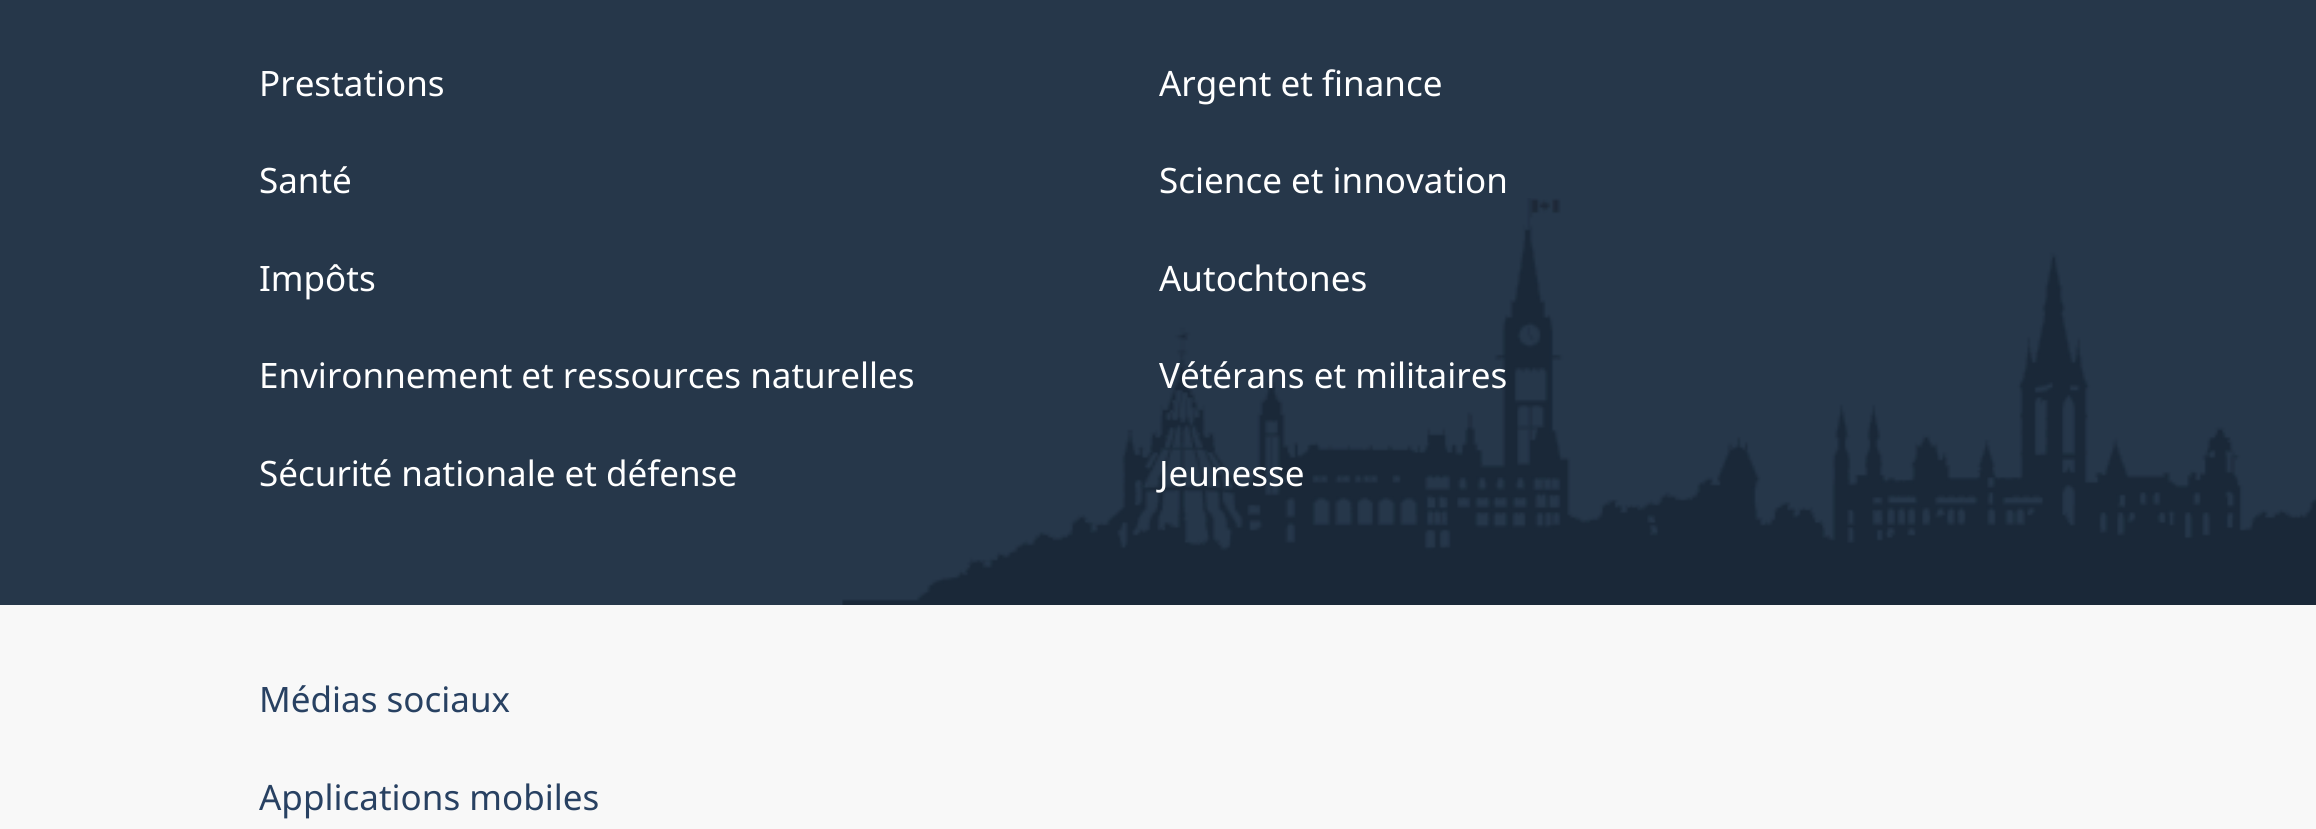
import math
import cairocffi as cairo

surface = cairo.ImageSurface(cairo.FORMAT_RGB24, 2316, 829)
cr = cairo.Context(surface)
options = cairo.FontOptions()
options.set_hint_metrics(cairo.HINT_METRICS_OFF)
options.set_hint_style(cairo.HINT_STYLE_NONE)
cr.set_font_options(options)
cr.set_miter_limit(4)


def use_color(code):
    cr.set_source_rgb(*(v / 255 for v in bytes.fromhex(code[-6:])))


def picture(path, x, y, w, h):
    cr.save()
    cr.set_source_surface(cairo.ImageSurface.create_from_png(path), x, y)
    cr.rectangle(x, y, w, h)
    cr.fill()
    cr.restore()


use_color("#26374a")
cr.paint()
picture("img1.png", 842, 198, 1474, 407)
cr.select_font_face("Noto Sans")
cr.set_font_size(35)
use_color("#ffffff")
cr.move_to(259, 96)
cr.show_text("Prestations")
cr.move_to(1159, 96)
cr.show_text("Argent et finance")
cr.move_to(259, 193)
cr.show_text("Santé")
cr.move_to(1159, 193)
cr.show_text("Science et innovation")
cr.move_to(259, 291)
cr.show_text("Impôts")
cr.move_to(1159, 291)
cr.show_text("Autochtones")
cr.move_to(259, 388)
cr.show_text("Environnement et ressources naturelles")
cr.move_to(1159, 388)
cr.show_text("Vétérans et militaires")
cr.move_to(259, 486)
cr.show_text("Sécurité nationale et défense")
cr.move_to(1159, 486)
cr.show_text("Jeunesse")
use_color("#f8f8f8")
cr.rectangle(0, 605, 2316, 224)
cr.fill()
use_color("#284162")
cr.move_to(259, 712)
cr.show_text("Médias sociaux")
cr.move_to(259, 810)
cr.show_text("Applications mobiles")
surface.write_to_png("result.png")
